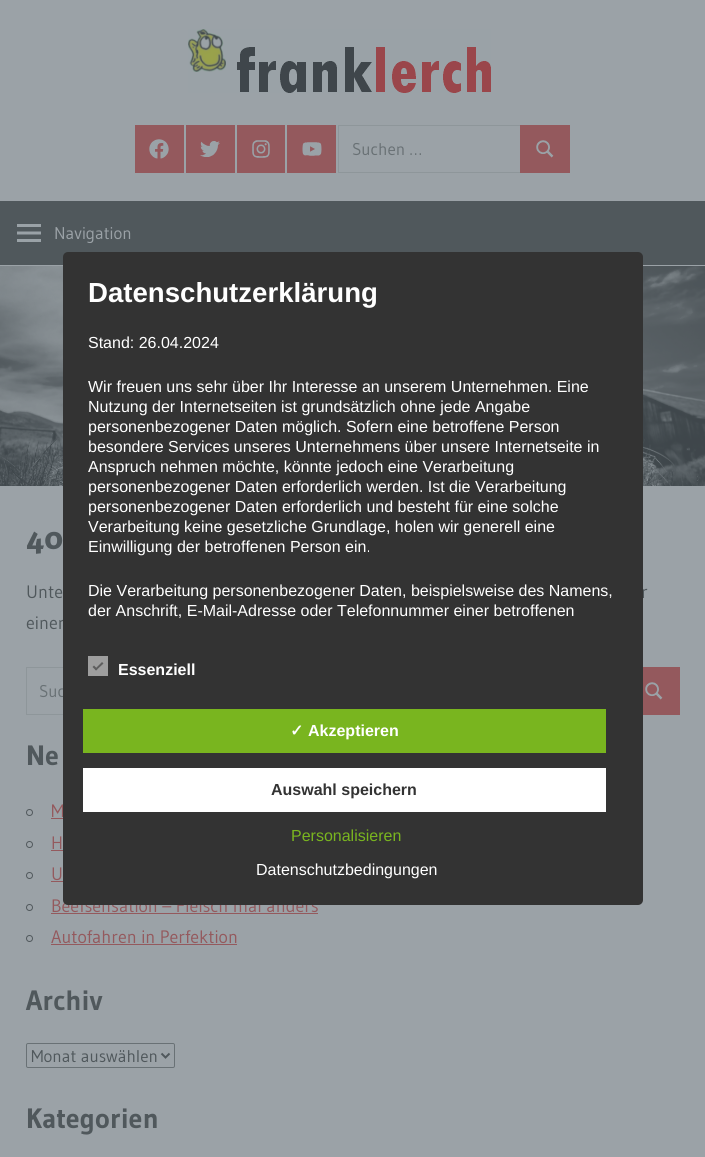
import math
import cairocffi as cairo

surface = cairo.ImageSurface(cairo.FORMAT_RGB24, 705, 1157)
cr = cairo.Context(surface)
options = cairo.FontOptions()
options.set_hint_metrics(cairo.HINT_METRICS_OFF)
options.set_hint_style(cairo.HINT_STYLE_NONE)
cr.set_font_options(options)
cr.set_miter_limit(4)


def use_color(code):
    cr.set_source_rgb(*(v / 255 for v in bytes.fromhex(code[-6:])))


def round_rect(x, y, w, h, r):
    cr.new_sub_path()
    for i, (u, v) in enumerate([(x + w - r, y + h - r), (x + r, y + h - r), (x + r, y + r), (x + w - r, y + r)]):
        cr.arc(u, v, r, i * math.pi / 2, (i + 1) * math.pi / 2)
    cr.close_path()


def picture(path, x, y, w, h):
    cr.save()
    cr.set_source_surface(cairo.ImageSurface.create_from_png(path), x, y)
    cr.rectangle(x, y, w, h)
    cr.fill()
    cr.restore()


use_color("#9ba2a7")
cr.paint()
picture("img1.png", 188, 29, 303, 64)
use_color("#94595d")
cr.rectangle(135, 125, 49, 48)
cr.fill()
picture("img2.png", 149, 139, 20, 20)
cr.rectangle(186, 125, 49, 48)
cr.fill()
picture("img3.png", 200, 141, 20, 16)
cr.rectangle(237, 125, 48, 48)
cr.fill()
picture("img4.png", 252, 140, 18, 18)
cr.rectangle(287, 125, 49, 48)
cr.fill()
picture("img5.png", 302, 142, 20, 14)
cr.rectangle(338.5, 125.5, 182, 47)
use_color("#8e969a")
cr.set_line_width(1)
cr.stroke()
cr.select_font_face("Gudea")
cr.set_font_size(17)
use_color("#697175")
cr.move_to(352, 155)
cr.show_text("Suchen …")
use_color("#94595d")
cr.rectangle(520, 125, 50, 48)
cr.fill()
picture("img6.png", 536, 140, 18, 18)
use_color("#50585c")
cr.rectangle(0, 201, 705, 64)
cr.fill()
picture("img7.png", 17, 224, 24, 18)
use_color("#9ba2a7")
cr.move_to(54, 239)
cr.show_text("Navigation")
picture("img8.png", 0, 266, 705, 220)
cr.select_font_face("Magra", cairo.FONT_SLANT_NORMAL, cairo.FONT_WEIGHT_BOLD)
cr.set_font_size(32)
use_color("#50585c")
cr.move_to(26, 549)
cr.show_text("40")
cr.select_font_face("Gudea")
cr.set_font_size(18)
cr.move_to(26, 598)
cr.show_text("Unte")
cr.move_to(641, 598)
cr.show_text("r")
cr.move_to(26, 629)
cr.show_text("einer")
cr.rectangle(26.5, 667.5, 603, 47)
use_color("#8e969a")
cr.stroke()
cr.set_font_size(17)
use_color("#697175")
cr.move_to(39, 697)
cr.show_text("Suc")
use_color("#94595d")
cr.rectangle(643, 667, 37, 48)
cr.fill()
picture("img6.png", 645, 682, 18, 18)
cr.select_font_face("Gudea", cairo.FONT_SLANT_NORMAL, cairo.FONT_WEIGHT_BOLD)
cr.set_font_size(28)
use_color("#50585c")
cr.move_to(26, 765)
cr.show_text("Ne")
cr.new_path()
cr.arc(29.5, 812.5, 3, 0, 2 * math.pi)
cr.stroke()
cr.select_font_face("Gudea")
cr.set_font_size(18)
use_color("#94595d")
cr.move_to(51, 817)
cr.show_text("M")
cr.rectangle(51, 818, 12, 1)
cr.fill()
cr.arc(29.5, 844.5, 3, 0, 2 * math.pi)
use_color("#50585c")
cr.stroke()
use_color("#94595d")
cr.move_to(51, 849)
cr.show_text("H")
cr.rectangle(51, 850, 12, 1)
cr.fill()
cr.arc(29.5, 875.5, 3, 0, 2 * math.pi)
use_color("#50585c")
cr.stroke()
use_color("#94595d")
cr.move_to(51, 880)
cr.show_text("U")
cr.rectangle(51, 881, 12, 1)
cr.fill()
cr.arc(29.5, 907.5, 3, 0, 2 * math.pi)
use_color("#50585c")
cr.stroke()
use_color("#94595d")
cr.move_to(51, 912)
cr.show_text("Beefsensation – Fleisch mal anders")
cr.rectangle(51, 913, 267, 1)
cr.fill()
cr.arc(29.5, 938.5, 3, 0, 2 * math.pi)
use_color("#50585c")
cr.stroke()
use_color("#94595d")
cr.move_to(51, 943)
cr.show_text("Autofahren in Perfektion")
cr.rectangle(51, 944, 186, 1)
cr.fill()
cr.select_font_face("Gudea", cairo.FONT_SLANT_NORMAL, cairo.FONT_WEIGHT_BOLD)
cr.set_font_size(28)
use_color("#50585c")
cr.move_to(26, 1010)
cr.show_text("Archiv")
round_rect(26.5, 1043.5, 148, 24, 1.5)
use_color("#697175")
cr.stroke()
cr.new_path()
cr.move_to(161.5, 1053.5)
cr.line_to(165.5, 1057.5)
cr.line_to(169.5, 1053.5)
use_color("#50585c")
cr.set_line_width(2)
cr.stroke()
cr.select_font_face("Gudea")
cr.set_font_size(17)
cr.move_to(31, 1062)
cr.show_text("Monat auswählen")
cr.select_font_face("Gudea", cairo.FONT_SLANT_NORMAL, cairo.FONT_WEIGHT_BOLD)
cr.set_font_size(28)
cr.move_to(26, 1128)
cr.show_text("Kategorien")
use_color("#333333")
round_rect(63, 252, 580, 653, 5)
cr.fill()
cr.select_font_face("Liberation Sans", cairo.FONT_SLANT_NORMAL, cairo.FONT_WEIGHT_BOLD)
cr.set_font_size(27.6)
use_color("#ffffff")
cr.move_to(88, 302)
cr.show_text("Datenschutzerklärung")
cr.select_font_face("Liberation Sans")
cr.set_font_size(16)
cr.move_to(88, 348)
cr.show_text("Stand: 26.04.2024")
cr.move_to(88, 392)
cr.show_text("Wir freuen uns sehr über Ihr Interesse an unserem Unternehmen. Eine")
cr.move_to(88, 412)
cr.show_text("Nutzung der Internetseiten ist grundsätzlich ohne jede Angabe")
cr.move_to(88, 432)
cr.show_text("personenbezogener Daten möglich. Sofern eine betroffene Person")
cr.move_to(88, 452)
cr.show_text("besondere Services unseres Unternehmens über unsere Internetseite in")
cr.move_to(88, 472)
cr.show_text("Anspruch nehmen möchte, könnte jedoch eine Verarbeitung")
cr.move_to(88, 492)
cr.show_text("personenbezogener Daten erforderlich werden. Ist die Verarbeitung")
cr.move_to(88, 512)
cr.show_text("personenbezogener Daten erforderlich und besteht für eine solche")
cr.move_to(88, 532)
cr.show_text("Verarbeitung keine gesetzliche Grundlage, holen wir generell eine")
cr.move_to(88, 552)
cr.show_text("Einwilligung der betroffenen Person ein.")
cr.move_to(88, 596)
cr.show_text("Die Verarbeitung personenbezogener Daten, beispielsweise des Namens,")
cr.move_to(88, 616)
cr.show_text("der Anschrift, E-Mail-Adresse oder Telefonnummer einer betroffenen")
use_color("#9e9e9e")
cr.rectangle(88, 656, 20, 20)
cr.fill()
use_color("#5e5e5e")
cr.new_path()
cr.move_to(102, 662)
cr.line_to(103.5, 663.5)
cr.line_to(96, 670.5)
cr.line_to(95, 669)
cr.close_path()
cr.fill()
cr.new_path()
cr.move_to(94, 665.5)
cr.line_to(97.5, 669)
cr.line_to(96, 670.5)
cr.line_to(92.5, 667)
cr.close_path()
cr.fill()
cr.select_font_face("Liberation Sans", cairo.FONT_SLANT_NORMAL, cairo.FONT_WEIGHT_BOLD)
use_color("#ffffff")
cr.move_to(118, 675)
cr.show_text("Essenziell")
use_color("#79b51f")
cr.rectangle(83, 709, 523, 44)
cr.fill()
cr.select_font_face("DejaVu Sans", cairo.FONT_SLANT_NORMAL, cairo.FONT_WEIGHT_BOLD)
use_color("#ffffff")
cr.move_to(290, 736)
cr.show_text("✓")
cr.select_font_face("Liberation Sans", cairo.FONT_SLANT_NORMAL, cairo.FONT_WEIGHT_BOLD)
cr.move_to(308, 736)
cr.show_text("Akzeptieren")
cr.rectangle(83, 768, 523, 44)
cr.fill()
use_color("#333333")
cr.move_to(271, 795)
cr.show_text("Auswahl speichern")
cr.select_font_face("Liberation Sans")
use_color("#79b51f")
cr.move_to(291, 841)
cr.show_text("Personalisieren")
use_color("#ffffff")
cr.move_to(256, 875)
cr.show_text("Datenschutzbedingungen")
surface.write_to_png("result.png")
